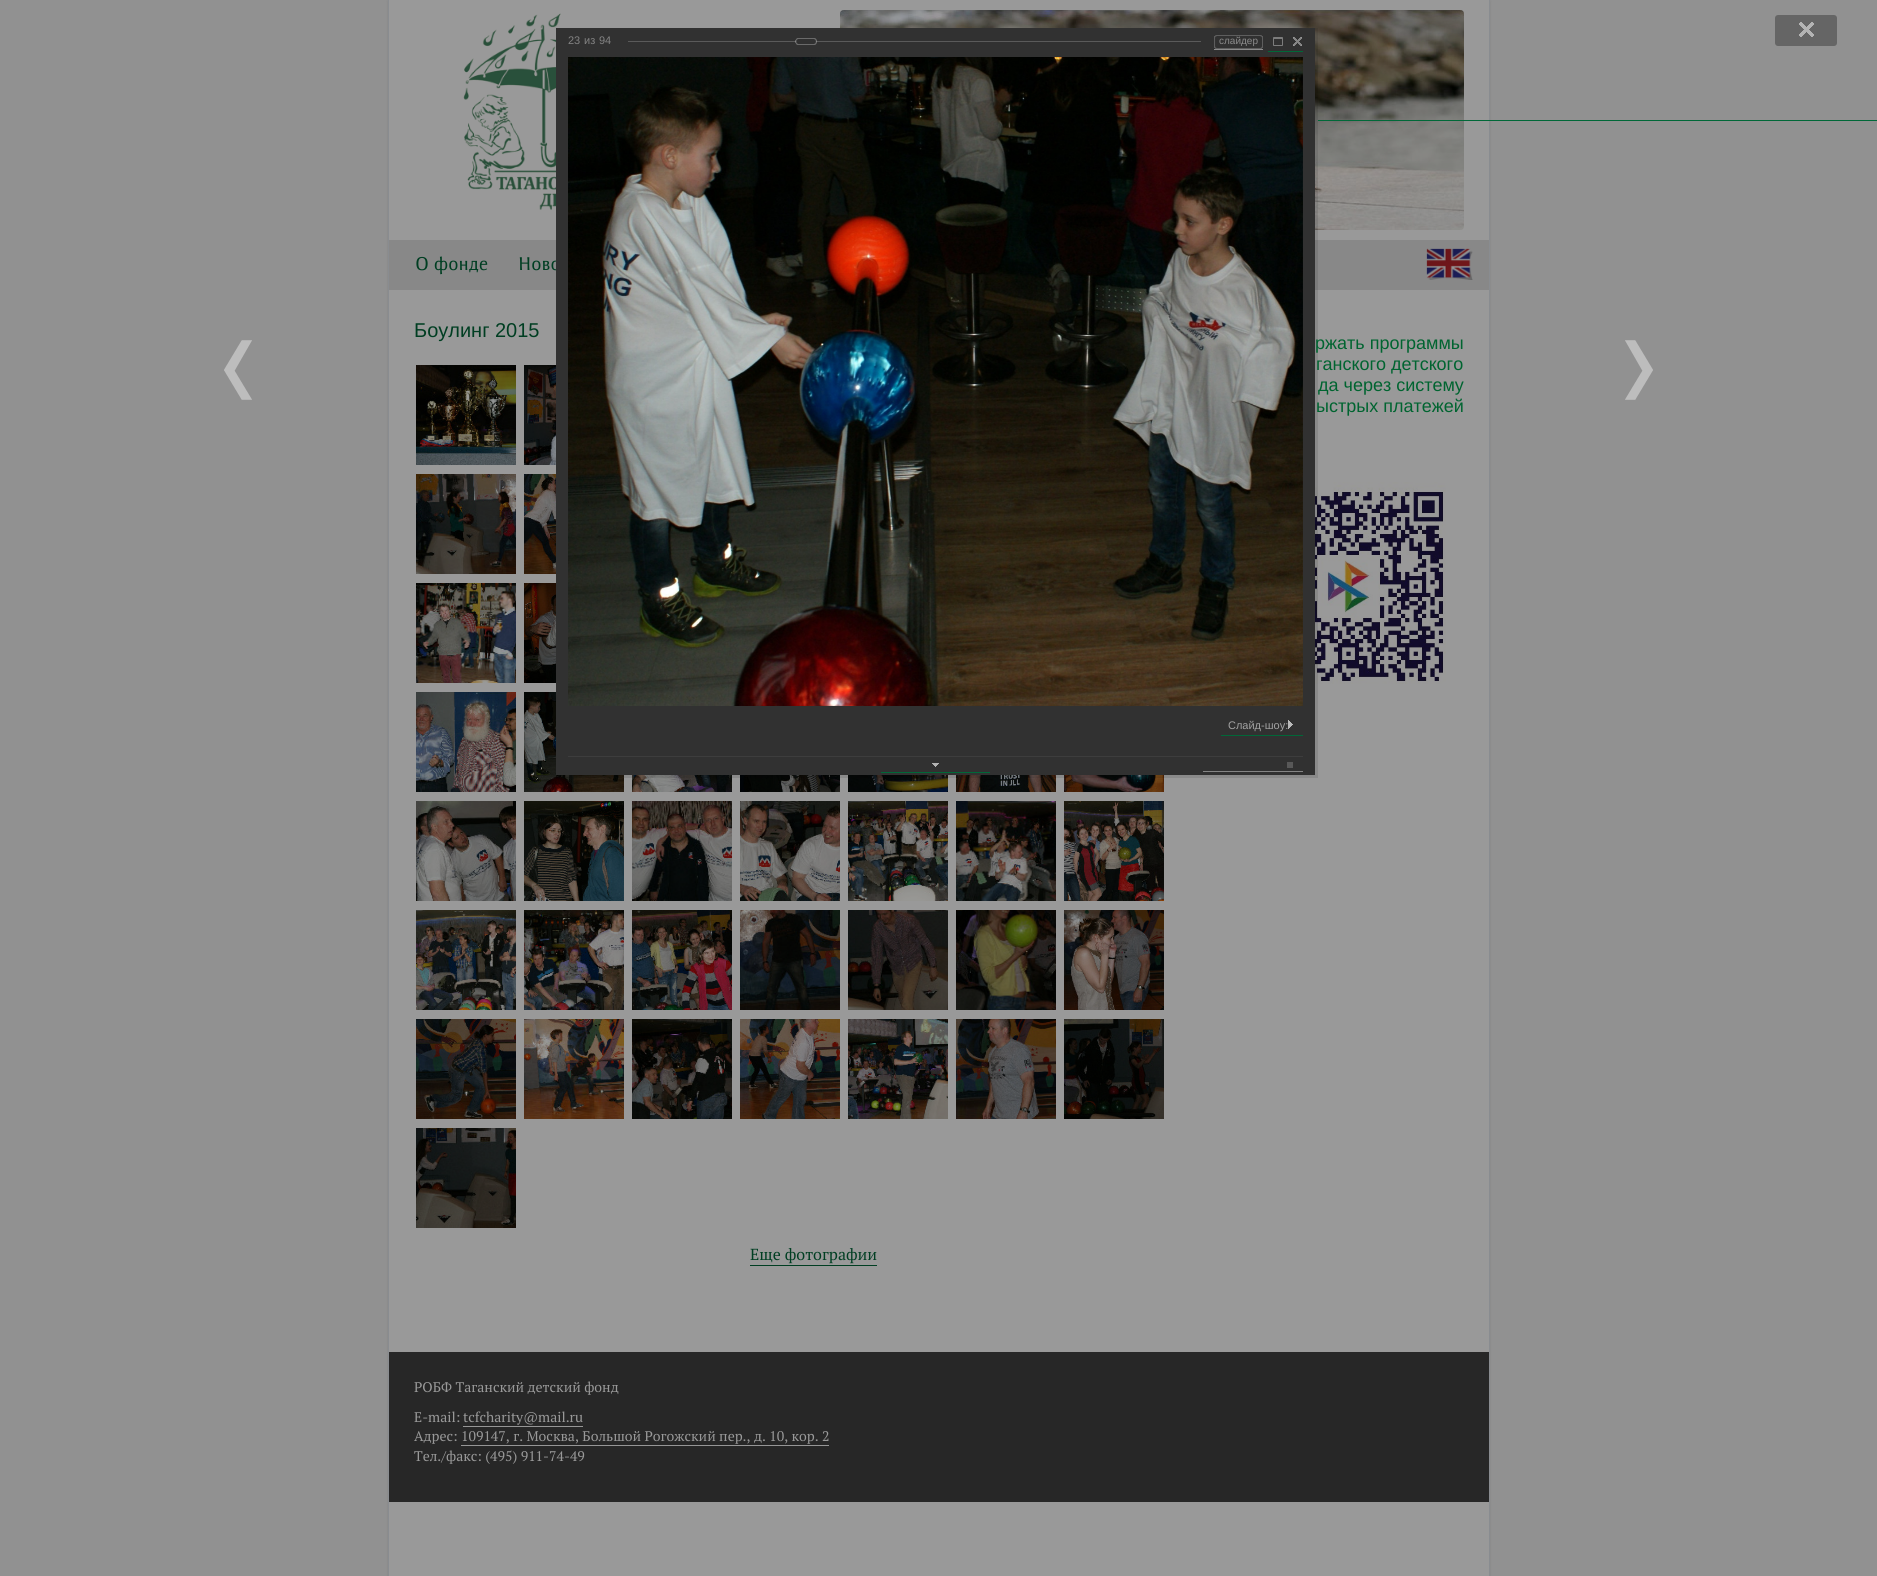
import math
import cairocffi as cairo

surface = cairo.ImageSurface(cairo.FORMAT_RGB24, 1877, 1576)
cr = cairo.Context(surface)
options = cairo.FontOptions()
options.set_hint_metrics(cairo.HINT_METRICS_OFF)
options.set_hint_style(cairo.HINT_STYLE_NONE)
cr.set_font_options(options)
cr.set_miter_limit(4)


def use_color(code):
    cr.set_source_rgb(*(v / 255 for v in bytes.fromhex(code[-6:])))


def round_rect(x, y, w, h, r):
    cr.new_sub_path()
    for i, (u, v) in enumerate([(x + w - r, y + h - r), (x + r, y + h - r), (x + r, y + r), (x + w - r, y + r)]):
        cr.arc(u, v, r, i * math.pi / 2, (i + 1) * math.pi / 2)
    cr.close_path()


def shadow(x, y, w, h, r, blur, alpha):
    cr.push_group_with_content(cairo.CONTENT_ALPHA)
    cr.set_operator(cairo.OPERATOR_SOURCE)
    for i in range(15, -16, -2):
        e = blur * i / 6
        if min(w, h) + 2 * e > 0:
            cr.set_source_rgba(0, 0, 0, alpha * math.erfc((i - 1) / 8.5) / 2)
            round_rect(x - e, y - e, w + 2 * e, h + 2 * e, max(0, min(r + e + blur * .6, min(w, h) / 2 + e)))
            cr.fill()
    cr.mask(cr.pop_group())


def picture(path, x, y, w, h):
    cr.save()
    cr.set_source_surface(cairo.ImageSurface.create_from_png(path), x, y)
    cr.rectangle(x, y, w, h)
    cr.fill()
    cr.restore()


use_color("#919191")
cr.paint()
picture("img1.png", 224, 340, 28, 60)
use_color("#000000")
shadow(388, 1, 1102, 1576, 0, 1, 0.1)
use_color("#999999")
cr.rectangle(389, 0, 1100, 1576)
cr.fill()
picture("img12.png", 463, 13, 98, 198)
picture("img13.png", 840, 10, 624, 220)
use_color("#888888")
cr.rectangle(389, 240, 1100, 50)
cr.fill()
picture("img22.png", 524, 692, 100, 100)
picture("img23.png", 632, 775, 100, 17)
picture("img24.png", 740, 775, 100, 17)
picture("img25.png", 848, 775, 100, 17)
picture("img26.png", 956, 775, 100, 17)
picture("img27.png", 1064, 775, 100, 17)
picture("img50.png", 1315, 482, 131, 202)
cr.set_source_rgba(0, 0, 0, 0.1)
cr.rectangle(559, 28, 759, 750)
cr.fill()
cr.select_font_face("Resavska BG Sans")
cr.set_font_size(19)
use_color("#003e22")
cr.move_to(518, 270)
cr.show_text("Ново")
use_color("#313131")
cr.rectangle(556, 28, 759, 747)
cr.fill()
cr.select_font_face("Liberation Sans")
cr.set_font_size(11)
use_color("#838383")
cr.move_to(568, 44)
cr.show_text("23")
cr.move_to(584, 44)
cr.show_text("из")
cr.move_to(599, 44)
cr.show_text("94")
use_color("#5a5a5a")
cr.rectangle(628, 41, 573, 1)
cr.fill()
picture("img2.png", 795, 38, 22, 7)
picture("img3.png", 1214, 35, 46, 14)
use_color("#8c8c8c")
cr.rectangle(1214, 49, 49, 1)
cr.fill()
cr.set_font_size(10)
cr.move_to(1219, 44)
cr.show_text("слайдер")
picture("img4.png", 1260, 35, 3, 14)
picture("img5.png", 1273, 37, 10, 9)
use_color("#006838")
cr.rectangle(1268, 51, 35, 1)
cr.fill()
picture("img6.png", 1293, 37, 9, 9)
picture("img7.png", 568, 57, 735, 649)
use_color("#3d3d3d")
cr.rectangle(568, 756, 735, 1)
cr.fill()
use_color("#006838")
cr.rectangle(1221, 735, 82, 1)
cr.fill()
cr.set_font_size(11)
use_color("#a2a2a2")
cr.move_to(1228, 729)
cr.show_text("Слайд-шоу:")
picture("img8.png", 1288, 720, 5, 9)
use_color("#006838")
cr.rectangle(881, 772, 109, 1)
cr.fill()
picture("img9.png", 932, 763, 7, 4)
use_color("#858585")
cr.rectangle(1203, 771, 100, 1)
cr.fill()
use_color("#585858")
cr.rectangle(1287, 762, 6, 6)
cr.fill()
use_color("#898c90")
cr.rectangle(1489, 0, 1, 1576)
cr.fill()
use_color("#006838")
cr.rectangle(1318, 120, 559, 1)
cr.fill()
picture("img10.png", 1775, 15, 62, 31)
picture("img11.png", 1625, 340, 28, 60)
use_color("#898c90")
cr.rectangle(388, 0, 1, 1576)
cr.fill()
cr.select_font_face("Resavska BG Sans")
cr.set_font_size(19)
use_color("#003e22")
cr.move_to(415, 270)
cr.show_text("О фонде")
picture("img14.png", 1426, 248, 47, 32)
cr.select_font_face("Liberation Sans")
cr.set_font_size(20)
cr.move_to(414, 337)
cr.show_text("Боулинг 2015")
picture("img15.png", 416, 365, 100, 100)
picture("img16.png", 524, 365, 32, 100)
picture("img17.png", 416, 474, 100, 100)
picture("img18.png", 524, 474, 32, 100)
picture("img19.png", 416, 583, 100, 100)
picture("img20.png", 524, 583, 32, 100)
picture("img21.png", 416, 692, 100, 100)
picture("img28.png", 416, 801, 100, 100)
picture("img29.png", 524, 801, 100, 100)
picture("img30.png", 632, 801, 100, 100)
picture("img31.png", 740, 801, 100, 100)
picture("img32.png", 848, 801, 100, 100)
picture("img33.png", 956, 801, 100, 100)
picture("img34.png", 1064, 801, 100, 100)
picture("img35.png", 416, 910, 100, 100)
picture("img36.png", 524, 910, 100, 100)
picture("img37.png", 632, 910, 100, 100)
picture("img38.png", 740, 910, 100, 100)
picture("img39.png", 848, 910, 100, 100)
picture("img40.png", 956, 910, 100, 100)
picture("img41.png", 1064, 910, 100, 100)
picture("img42.png", 416, 1019, 100, 100)
picture("img43.png", 524, 1019, 100, 100)
picture("img44.png", 632, 1019, 100, 100)
picture("img45.png", 740, 1019, 100, 100)
picture("img46.png", 848, 1019, 100, 100)
picture("img47.png", 956, 1019, 100, 100)
picture("img48.png", 1064, 1019, 100, 100)
picture("img49.png", 416, 1128, 100, 100)
cr.rectangle(750, 1265, 127, 1)
cr.fill()
cr.select_font_face("PT Serif")
cr.set_font_size(16)
cr.move_to(750, 1260)
cr.show_text("Еще фотографии")
cr.select_font_face("Liberation Sans")
cr.set_font_size(18)
use_color("#006430")
cr.move_to(1315, 349)
cr.show_text("ржать программы")
cr.move_to(1316, 370)
cr.show_text("ганского детского")
cr.move_to(1318, 391)
cr.show_text("да через систему")
cr.move_to(1316, 412)
cr.show_text("ыстрых платежей")
use_color("#272727")
cr.rectangle(389, 1352, 1100, 150)
cr.fill()
cr.select_font_face("PT Serif")
cr.set_font_size(14)
use_color("#999999")
cr.move_to(414, 1392)
cr.show_text("РОБФ Таганский детский фонд")
cr.move_to(414, 1422)
cr.show_text("E-mail:")
cr.move_to(463, 1422)
cr.show_text("tcfcharity@mail.ru")
use_color("#969696")
cr.rectangle(463, 1426, 120, 1)
cr.fill()
use_color("#999999")
cr.move_to(414, 1441)
cr.show_text("Адрес:")
cr.move_to(461, 1441)
cr.show_text("109147, г. Москва, Большой Рогожский пер., д. 10, кор. 2")
use_color("#969696")
cr.rectangle(461, 1445, 368, 1)
cr.fill()
use_color("#999999")
cr.move_to(414, 1461)
cr.show_text("Тел./факс: (495) 911-74-49")
surface.write_to_png("result.png")
